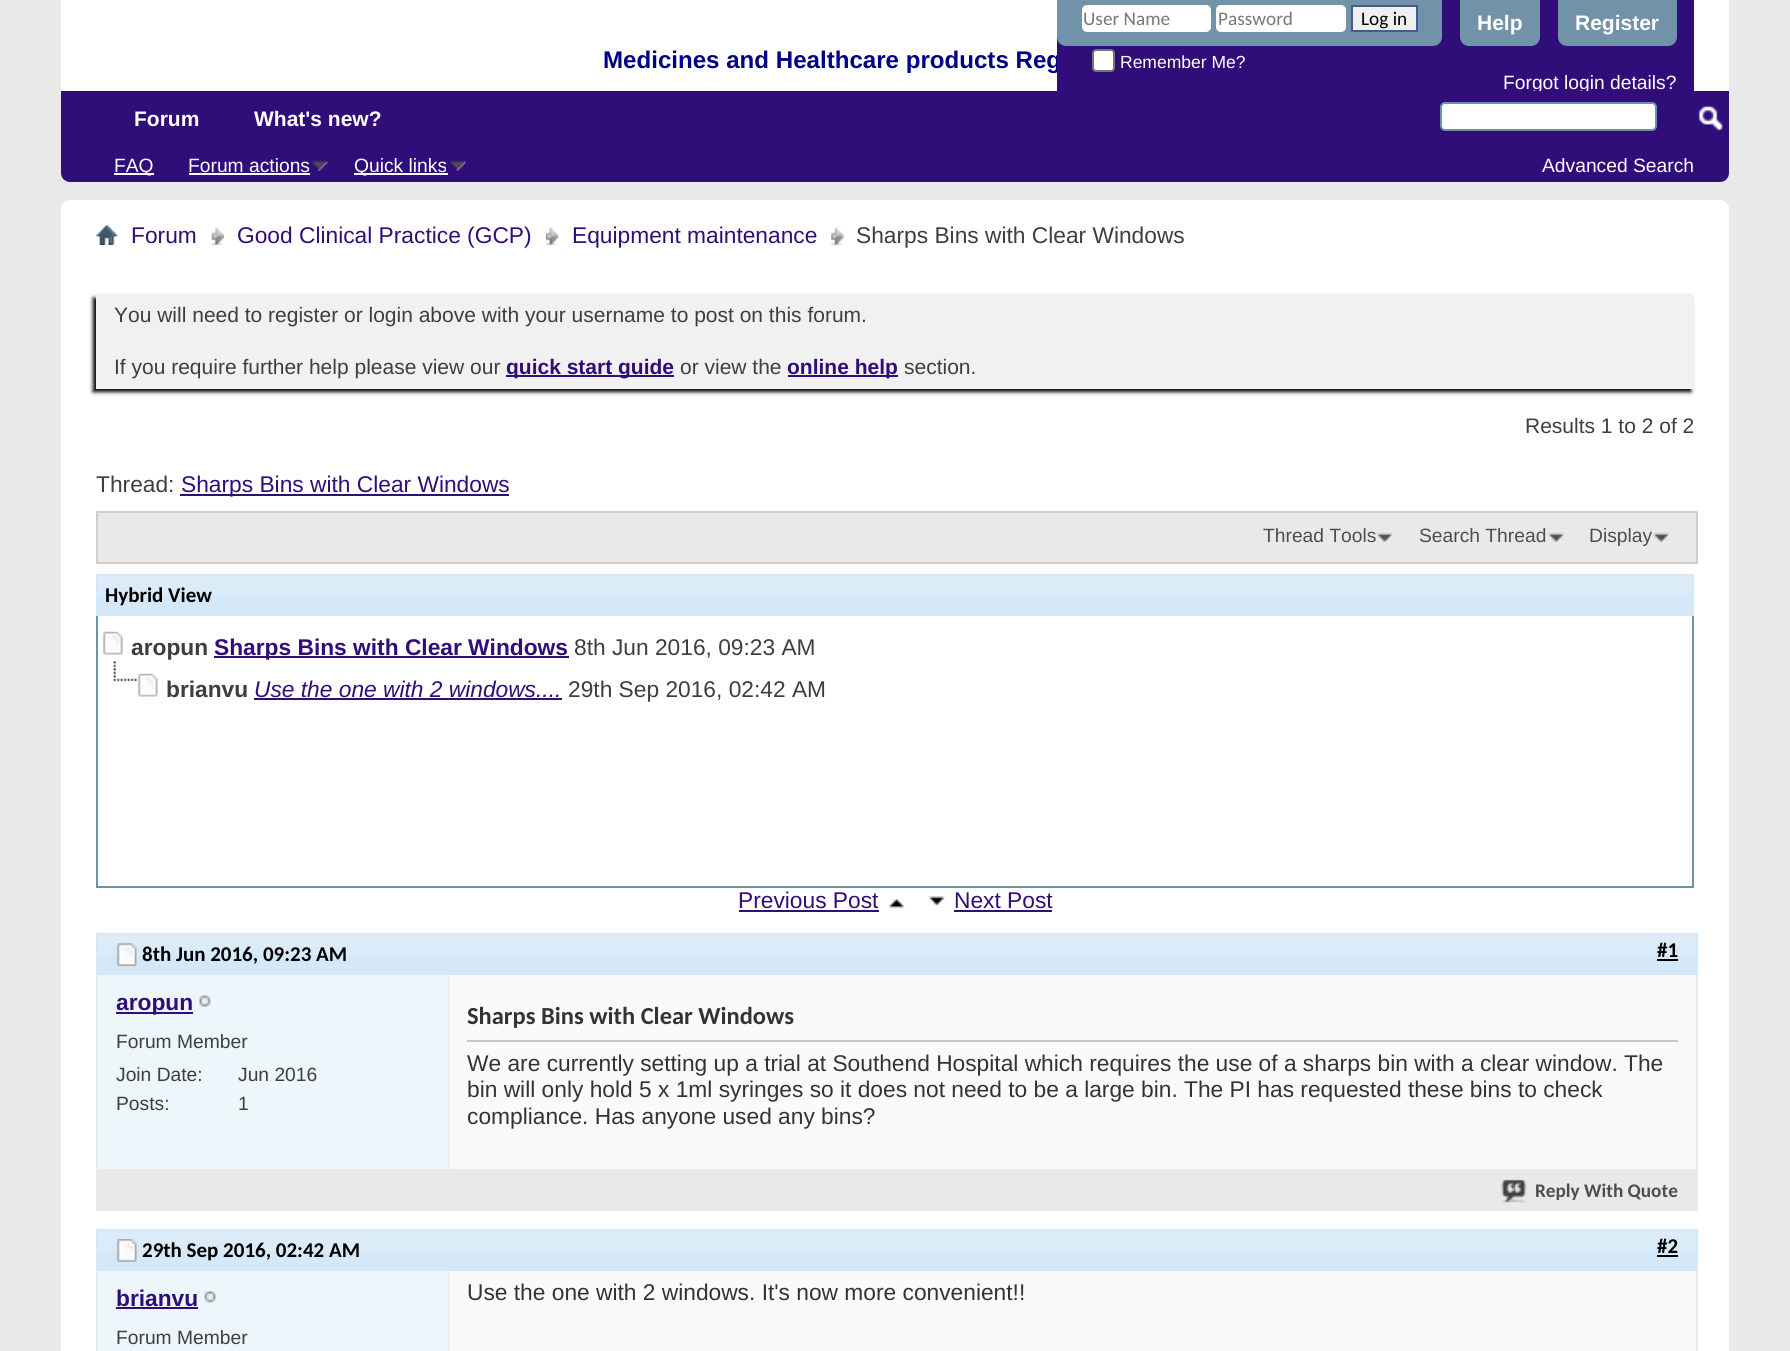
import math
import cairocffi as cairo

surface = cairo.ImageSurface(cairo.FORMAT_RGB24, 1790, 1351)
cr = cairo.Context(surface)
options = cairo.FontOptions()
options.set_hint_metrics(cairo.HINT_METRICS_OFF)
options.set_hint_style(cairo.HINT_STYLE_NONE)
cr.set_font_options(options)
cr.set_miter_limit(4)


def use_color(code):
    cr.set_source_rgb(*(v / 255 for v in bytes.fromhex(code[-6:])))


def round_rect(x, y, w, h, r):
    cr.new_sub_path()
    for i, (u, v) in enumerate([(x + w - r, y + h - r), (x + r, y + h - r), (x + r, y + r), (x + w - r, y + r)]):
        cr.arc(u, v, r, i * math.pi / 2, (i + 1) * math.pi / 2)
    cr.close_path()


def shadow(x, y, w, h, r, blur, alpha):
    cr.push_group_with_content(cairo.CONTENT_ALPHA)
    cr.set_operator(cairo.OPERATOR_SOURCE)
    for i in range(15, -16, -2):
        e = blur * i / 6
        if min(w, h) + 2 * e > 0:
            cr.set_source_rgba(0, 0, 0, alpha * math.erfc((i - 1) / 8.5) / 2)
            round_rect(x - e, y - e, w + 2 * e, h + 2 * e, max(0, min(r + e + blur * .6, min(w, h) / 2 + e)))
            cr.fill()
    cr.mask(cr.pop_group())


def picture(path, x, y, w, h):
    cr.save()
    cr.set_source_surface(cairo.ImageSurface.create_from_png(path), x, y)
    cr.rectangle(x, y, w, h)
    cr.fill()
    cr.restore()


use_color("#e9e9e9")
cr.paint()
use_color("#ffffff")
cr.new_path()
cr.move_to(61, 0)
cr.line_to(1729, 0)
cr.line_to(1729, 173)
cr.curve_to(1729, 178, 1725, 182, 1720, 182)
cr.line_to(70, 182)
cr.curve_to(65, 182, 61, 178, 61, 173)
cr.close_path()
cr.fill()
cr.select_font_face("Liberation Sans", cairo.FONT_SLANT_NORMAL, cairo.FONT_WEIGHT_BOLD)
cr.set_font_size(24.1)
use_color("#000088")
cr.move_to(603, 68)
cr.show_text("Medicines and Healthcare products Reg")
use_color("#310d7a")
cr.rectangle(1057, 0, 637, 91)
cr.fill()
use_color("#7192a8")
cr.new_path()
cr.move_to(1057, 0)
cr.line_to(1442, 0)
cr.line_to(1442, 37)
cr.curve_to(1442, 42, 1438, 46, 1433, 46)
cr.line_to(1066, 46)
cr.curve_to(1061, 46, 1057, 42, 1057, 37)
cr.close_path()
cr.fill()
use_color("#ffffff")
round_rect(1082, 5, 129, 27, 5)
cr.fill()
cr.select_font_face("Carlito")
cr.set_font_size(19.25)
use_color("#777777")
cr.move_to(1083, 25)
cr.show_text("User Name")
use_color("#ffffff")
round_rect(1216, 5, 130, 27, 5)
cr.fill()
use_color("#777777")
cr.move_to(1218, 25)
cr.show_text("Password")
use_color("#efefef")
cr.rectangle(1352, 6, 65, 25)
cr.fill_preserve()
use_color("#415d8d")
cr.stroke()
use_color("#000000")
cr.move_to(1361, 25)
cr.show_text("Log in")
use_color("#ffffff")
round_rect(1093, 50, 21, 21, 3)
cr.fill_preserve()
use_color("#767676")
cr.stroke()
cr.select_font_face("Liberation Sans")
cr.set_font_size(17.5)
use_color("#ffffff")
cr.move_to(1120, 68)
cr.show_text("Remember Me?")
use_color("#7192a8")
cr.new_path()
cr.move_to(1460, 0)
cr.line_to(1540, 0)
cr.line_to(1540, 37)
cr.curve_to(1540, 42, 1536, 46, 1531, 46)
cr.line_to(1469, 46)
cr.curve_to(1464, 46, 1460, 42, 1460, 37)
cr.close_path()
cr.fill()
cr.select_font_face("Liberation Sans", cairo.FONT_SLANT_NORMAL, cairo.FONT_WEIGHT_BOLD)
cr.set_font_size(21)
use_color("#ffffff")
cr.move_to(1477, 30)
cr.show_text("Help")
use_color("#7192a8")
cr.new_path()
cr.move_to(1558, 0)
cr.line_to(1677, 0)
cr.line_to(1677, 37)
cr.curve_to(1677, 42, 1673, 46, 1668, 46)
cr.line_to(1567, 46)
cr.curve_to(1562, 46, 1558, 42, 1558, 37)
cr.close_path()
cr.fill()
use_color("#ffffff")
cr.move_to(1575, 30)
cr.show_text("Register")
cr.select_font_face("Liberation Sans")
cr.set_font_size(19.25)
cr.move_to(1503, 89)
cr.show_text("Forgot login details?")
use_color("#310d7a")
cr.new_path()
cr.move_to(61, 91)
cr.line_to(1729, 91)
cr.line_to(1729, 173)
cr.curve_to(1729, 178, 1725, 182, 1720, 182)
cr.line_to(70, 182)
cr.curve_to(65, 182, 61, 178, 61, 173)
cr.close_path()
cr.fill()
cr.select_font_face("Liberation Sans", cairo.FONT_SLANT_NORMAL, cairo.FONT_WEIGHT_BOLD)
cr.set_font_size(21)
use_color("#ffffff")
cr.move_to(254, 126)
cr.show_text("What's new?")
cr.move_to(134, 126)
cr.show_text("Forum")
cr.rectangle(114, 173, 40, 2)
cr.fill()
cr.select_font_face("Liberation Sans")
cr.set_font_size(19.25)
cr.move_to(114, 172)
cr.show_text("FAQ")
cr.move_to(188, 172)
cr.show_text("Forum actions")
cr.rectangle(189, 173, 121, 2)
cr.fill()
picture("img1.png", 311, 160, 17, 11)
cr.rectangle(354, 173, 94, 2)
cr.fill()
cr.move_to(354, 172)
cr.show_text("Quick links")
picture("img2.png", 449, 160, 17, 11)
round_rect(1441, 103, 215, 27, 4)
cr.fill_preserve()
use_color("#6b91ab")
cr.stroke()
picture("img3.png", 1698, 106, 25, 26)
use_color("#ffffff")
cr.move_to(1542, 172)
cr.show_text("Advanced Search")
round_rect(61, 200, 1668, 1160, 9)
cr.fill()
picture("img4.png", 96, 225, 22, 20)
picture("img5.png", 211, 227, 13, 18)
cr.set_font_size(22.75)
use_color("#310d7a")
cr.move_to(131, 243)
cr.show_text("Forum")
picture("img6.png", 546, 227, 13, 18)
cr.move_to(237, 243)
cr.show_text("Good Clinical Practice (GCP)")
picture("img7.png", 831, 227, 13, 18)
cr.move_to(572, 243)
cr.show_text("Equipment maintenance")
use_color("#3e3e3e")
cr.move_to(856, 243)
cr.show_text("Sharps Bins with Clear Windows")
use_color("#000000")
shadow(93, 298, 1598, 94, 0, 2, 1)
use_color("#f1f1f1")
cr.rectangle(96, 294, 1598, 95)
cr.fill()
cr.set_font_size(21)
use_color("#3e3e3e")
cr.move_to(114, 322)
cr.show_text("You will need to register or login above with your username to post on this forum.")
cr.move_to(114, 374)
cr.show_text("If you require further help please view our")
use_color("#310d7a")
cr.rectangle(506, 375, 168, 2)
cr.fill()
cr.select_font_face("Liberation Sans", cairo.FONT_SLANT_NORMAL, cairo.FONT_WEIGHT_BOLD)
cr.move_to(506, 374)
cr.show_text("quick start guide")
cr.select_font_face("Liberation Sans")
use_color("#3e3e3e")
cr.move_to(680, 374)
cr.show_text("or view the")
use_color("#310d7a")
cr.rectangle(788, 375, 110, 2)
cr.fill()
cr.select_font_face("Liberation Sans", cairo.FONT_SLANT_NORMAL, cairo.FONT_WEIGHT_BOLD)
cr.move_to(787, 374)
cr.show_text("online help")
cr.select_font_face("Liberation Sans")
use_color("#3e3e3e")
cr.move_to(904, 374)
cr.show_text("section.")
cr.move_to(1525, 433)
cr.show_text("Results 1 to 2 of 2")
cr.set_font_size(22.75)
cr.move_to(96, 492)
cr.show_text("Thread:")
use_color("#310d7a")
cr.rectangle(180, 494, 329, 2)
cr.fill()
cr.move_to(181, 492)
cr.show_text("Sharps Bins with Clear Windows")
use_color("#e9e9e9")
cr.rectangle(98, 514, 1598, 48)
cr.fill()
use_color("#ededed")
cr.rectangle(97, 513, 1600, 1)
cr.fill()
cr.rectangle(97, 512, 1600, 51)
use_color("#cecece")
cr.stroke()
picture("img8.png", 1377, 532, 16, 12)
cr.set_font_size(19.25)
use_color("#4e4e4e")
cr.move_to(1263, 542)
cr.show_text("Thread Tools")
picture("img9.png", 1548, 532, 17, 12)
cr.move_to(1419, 542)
cr.show_text("Search Thread")
picture("img9.png", 1653, 532, 17, 12)
cr.move_to(1589, 542)
cr.show_text("Display")
use_color("#d5e8f7")
cr.rectangle(98, 576, 1594, 38)
cr.fill()
picture("img10.png", 98, 576, 1594, 21)
cr.rectangle(97, 575, 1596, 40)
cr.stroke()
cr.select_font_face("Carlito", cairo.FONT_SLANT_NORMAL, cairo.FONT_WEIGHT_BOLD)
cr.set_font_size(21)
use_color("#000000")
cr.move_to(105, 602)
cr.show_text("Hybrid View")
use_color("#6b91ab")
cr.rectangle(1692, 616, 2, 271)
cr.fill()
cr.rectangle(96, 886, 1598, 2)
cr.fill()
cr.rectangle(96, 616, 2, 271)
cr.fill()
picture("img11.png", 102, 631, 21, 24)
cr.select_font_face("Liberation Sans", cairo.FONT_SLANT_NORMAL, cairo.FONT_WEIGHT_BOLD)
cr.set_font_size(22.75)
use_color("#3e3e3e")
cr.move_to(131, 655)
cr.show_text("aropun")
use_color("#310d7a")
cr.rectangle(214, 656, 355, 2)
cr.fill()
cr.move_to(214, 655)
cr.show_text("Sharps Bins with Clear Windows")
cr.select_font_face("Liberation Sans")
use_color("#3e3e3e")
cr.move_to(574, 655)
cr.show_text("8th Jun 2016, 09:23 AM")
picture("img12.png", 113, 661, 24, 21)
picture("img13.png", 137, 673, 21, 24)
cr.select_font_face("Liberation Sans", cairo.FONT_SLANT_NORMAL, cairo.FONT_WEIGHT_BOLD)
cr.move_to(166, 697)
cr.show_text("brianvu")
cr.select_font_face("Liberation Sans", cairo.FONT_SLANT_ITALIC)
use_color("#310d7a")
cr.move_to(254, 697)
cr.show_text("Use the one with 2 windows....")
cr.rectangle(254, 698, 308, 2)
cr.fill()
cr.select_font_face("Liberation Sans")
use_color("#3e3e3e")
cr.move_to(568, 697)
cr.show_text("29th Sep 2016, 02:42 AM")
use_color("#310d7a")
cr.move_to(738, 908)
cr.show_text("Previous Post")
cr.rectangle(739, 910, 140, 2)
cr.fill()
picture("img14.png", 888, 899, 17, 10)
picture("img15.png", 929, 896, 16, 10)
cr.move_to(954, 908)
cr.show_text("Next Post")
cr.rectangle(954, 910, 98, 2)
cr.fill()
cr.rectangle(97, 934, 1600, 276)
use_color("#e9e9e9")
cr.stroke()
use_color("#d5e8f7")
cr.rectangle(98, 935, 1598, 38)
cr.fill()
picture("img16.png", 98, 935, 1598, 20)
cr.rectangle(97, 934, 1600, 40)
cr.stroke()
picture("img17.png", 116, 943, 21, 23)
cr.select_font_face("Carlito", cairo.FONT_SLANT_NORMAL, cairo.FONT_WEIGHT_BOLD)
cr.set_font_size(21)
use_color("#000000")
cr.move_to(142, 961)
cr.show_text("8th Jun 2016, 09:23 AM")
cr.move_to(1657, 957)
cr.show_text("#1")
cr.rectangle(1657, 959, 21, 2)
cr.fill()
use_color("#edf6fb")
cr.rectangle(98, 975, 350, 194)
cr.fill()
use_color("#310d7a")
cr.rectangle(116, 1012, 77, 2)
cr.fill()
cr.select_font_face("Liberation Sans", cairo.FONT_SLANT_NORMAL, cairo.FONT_WEIGHT_BOLD)
cr.set_font_size(22.75)
cr.move_to(116, 1010)
cr.show_text("aropun")
picture("img18.png", 199, 995, 12, 12)
cr.select_font_face("Liberation Sans")
cr.set_font_size(19.25)
use_color("#3e3e3e")
cr.move_to(116, 1048)
cr.show_text("Forum Member")
cr.move_to(116, 1081)
cr.show_text("Join Date:")
cr.move_to(238, 1081)
cr.show_text("Jun 2016")
cr.move_to(116, 1110)
cr.show_text("Posts:")
cr.move_to(238, 1110)
cr.show_text("1")
use_color("#fafafa")
cr.rectangle(450, 975, 1246, 194)
cr.fill()
use_color("#efefef")
cr.rectangle(448, 975, 2, 194)
cr.fill()
use_color("#c8c8c8")
cr.rectangle(467, 1040, 1211, 2)
cr.fill()
cr.select_font_face("Carlito", cairo.FONT_SLANT_NORMAL, cairo.FONT_WEIGHT_BOLD)
cr.set_font_size(24.5)
use_color("#333333")
cr.move_to(467, 1024)
cr.show_text("Sharps Bins with Clear Windows")
cr.select_font_face("Liberation Sans")
cr.set_font_size(22.75)
cr.move_to(467, 1071)
cr.show_text("We are currently setting up a trial at Southend Hospital which requires the use of a sharps bin with a clear window. The")
cr.move_to(467, 1097)
cr.show_text("bin will only hold 5 x 1ml syringes so it does not need to be a large bin. The PI has requested these bins to check")
cr.move_to(467, 1124)
cr.show_text("compliance. Has anyone used any bins?")
use_color("#e9e9e9")
cr.rectangle(98, 1169, 1598, 40)
cr.fill()
picture("img19.png", 1501, 1179, 26, 24)
cr.select_font_face("Carlito", cairo.FONT_SLANT_NORMAL, cairo.FONT_WEIGHT_BOLD)
cr.set_font_size(19.25)
use_color("#4e4e4e")
cr.move_to(1535, 1197)
cr.show_text("Reply With Quote")
cr.rectangle(97, 1230, 1600, 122)
use_color("#e9e9e9")
cr.stroke()
use_color("#d5e8f7")
cr.rectangle(98, 1231, 1598, 38)
cr.fill()
picture("img20.png", 98, 1231, 1598, 20)
cr.rectangle(97, 1230, 1600, 40)
cr.stroke()
picture("img21.png", 116, 1239, 21, 23)
cr.set_font_size(21)
use_color("#000000")
cr.move_to(142, 1257)
cr.show_text("29th Sep 2016, 02:42 AM")
cr.move_to(1657, 1253)
cr.show_text("#2")
cr.rectangle(1657, 1255, 21, 2)
cr.fill()
use_color("#edf6fb")
cr.rectangle(98, 1271, 350, 80)
cr.fill()
cr.select_font_face("Liberation Sans", cairo.FONT_SLANT_NORMAL, cairo.FONT_WEIGHT_BOLD)
cr.set_font_size(22.75)
use_color("#310d7a")
cr.move_to(116, 1306)
cr.show_text("brianvu")
cr.rectangle(116, 1307, 82, 2)
cr.fill()
picture("img22.png", 204, 1291, 12, 12)
cr.select_font_face("Liberation Sans")
cr.set_font_size(19.25)
use_color("#3e3e3e")
cr.move_to(116, 1344)
cr.show_text("Forum Member")
use_color("#fafafa")
cr.rectangle(450, 1271, 1246, 80)
cr.fill()
use_color("#efefef")
cr.rectangle(448, 1271, 2, 80)
cr.fill()
cr.set_font_size(22.75)
use_color("#333333")
cr.move_to(467, 1300)
cr.show_text("Use the one with 2 windows. It's now more convenient!!")
surface.write_to_png("result.png")
